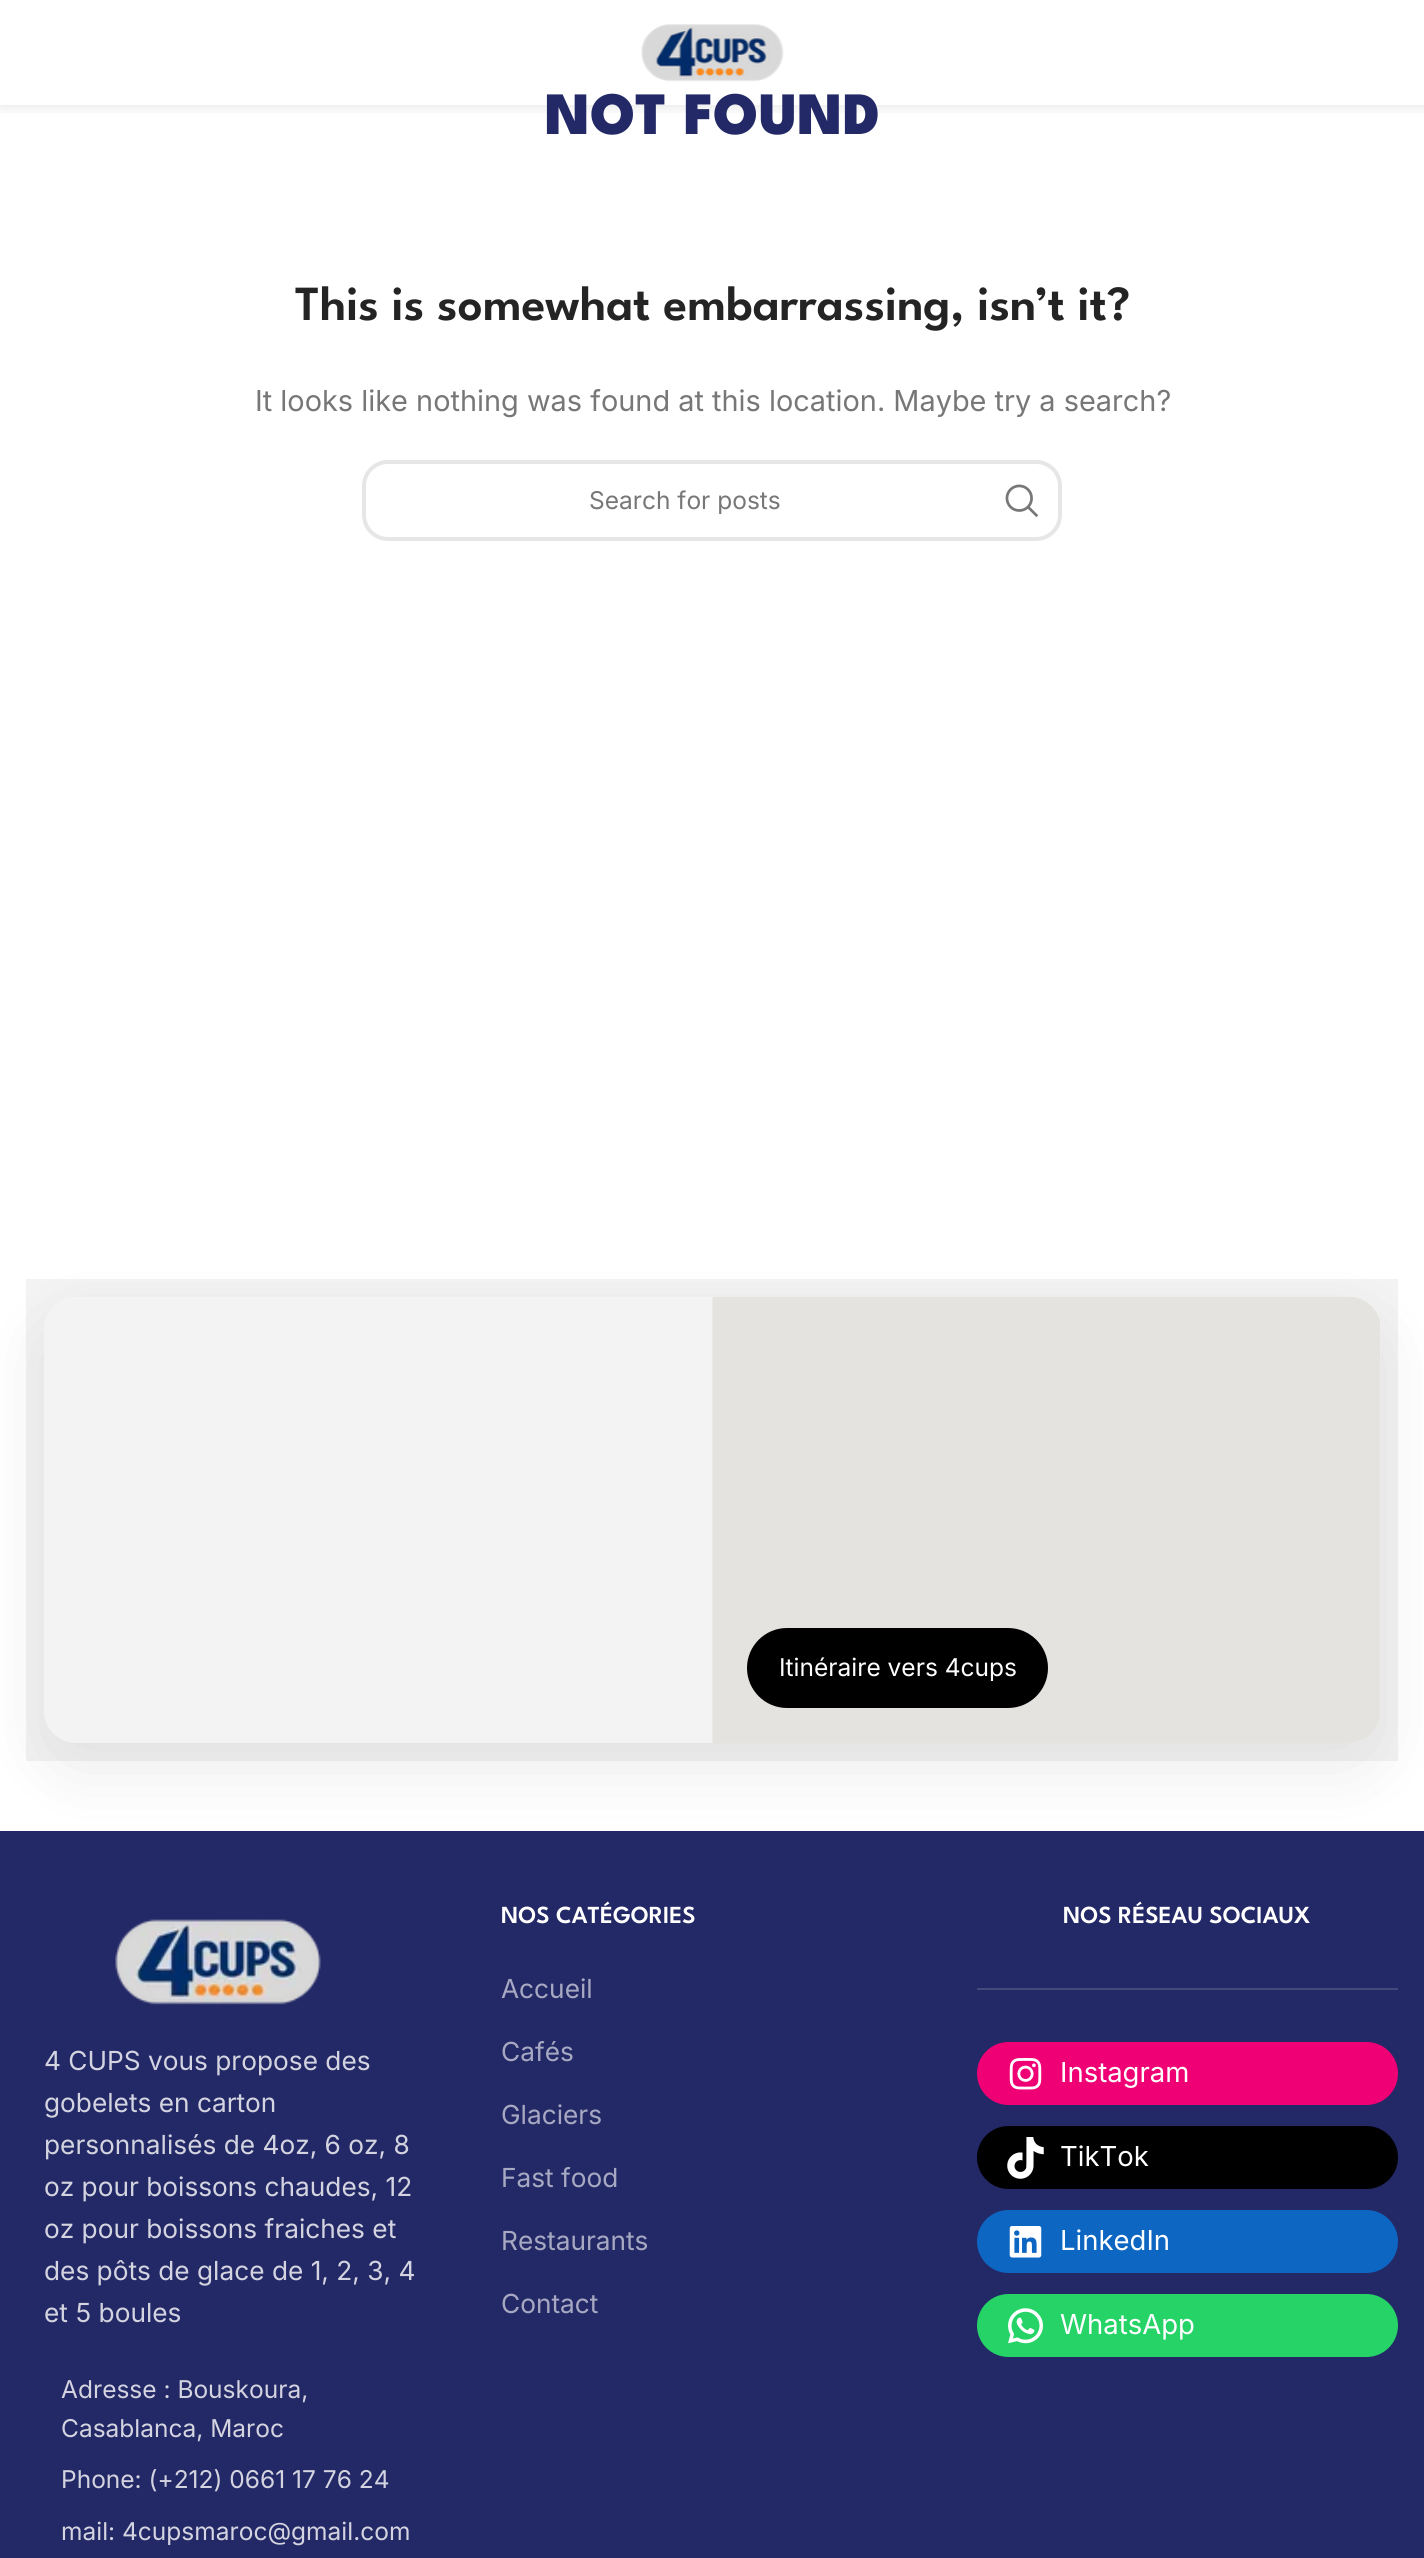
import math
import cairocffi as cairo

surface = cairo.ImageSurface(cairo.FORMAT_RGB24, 1424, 2558)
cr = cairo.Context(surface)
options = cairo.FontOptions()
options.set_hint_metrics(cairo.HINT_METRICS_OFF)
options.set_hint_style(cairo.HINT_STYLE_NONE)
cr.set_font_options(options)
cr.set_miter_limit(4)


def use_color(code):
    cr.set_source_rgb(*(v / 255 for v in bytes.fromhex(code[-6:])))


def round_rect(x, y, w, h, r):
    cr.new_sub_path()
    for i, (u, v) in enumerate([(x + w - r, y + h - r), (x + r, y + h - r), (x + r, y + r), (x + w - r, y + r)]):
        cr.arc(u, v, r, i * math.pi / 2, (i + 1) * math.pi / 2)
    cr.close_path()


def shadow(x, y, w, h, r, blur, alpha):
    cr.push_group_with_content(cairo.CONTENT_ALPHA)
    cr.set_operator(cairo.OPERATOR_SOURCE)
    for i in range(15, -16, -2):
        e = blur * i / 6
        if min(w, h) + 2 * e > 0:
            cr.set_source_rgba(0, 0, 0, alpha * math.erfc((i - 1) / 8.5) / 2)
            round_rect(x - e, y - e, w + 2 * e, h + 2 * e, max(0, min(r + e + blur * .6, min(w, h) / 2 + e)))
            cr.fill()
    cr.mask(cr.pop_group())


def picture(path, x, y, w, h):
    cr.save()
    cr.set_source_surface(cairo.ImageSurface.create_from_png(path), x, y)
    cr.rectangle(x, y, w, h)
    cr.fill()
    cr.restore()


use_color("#ffffff")
cr.paint()
cr.save()
cr.rectangle(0, 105, 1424, 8)
cr.clip()
use_color("#000000")
shadow(0, 2, 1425, 105, 0, 7, 0.1)
cr.restore()
picture("img1.png", 641, 24, 143, 58)
cr.select_font_face("League Spartan Black")
cr.set_font_size(60)
use_color("#232866")
cr.move_to(545, 134)
cr.show_text("NOT FOUND")
cr.select_font_face("League Spartan SemiBold")
cr.set_font_size(49)
use_color("#242424")
cr.move_to(295, 320)
cr.show_text("This is somewhat embarrassing, isn’t it?")
cr.select_font_face("Inter")
cr.set_font_size(28.9)
use_color("#777777")
cr.move_to(255, 411)
cr.show_text("It looks like nothing was found at this location. Maybe try a search?")
round_rect(364, 462, 696, 77, 24)
use_color("#e6e6e6")
cr.set_line_width(4)
cr.stroke()
cr.set_font_size(24.5)
use_color("#777777")
cr.move_to(589, 509)
cr.show_text("Search for posts")
picture("img2.png", 1005, 484, 34, 34)
use_color("#f3f3f3")
cr.rectangle(26, 1279, 1372, 482)
cr.fill()
use_color("#232866")
cr.rectangle(0, 1831, 1424, 727)
cr.fill()
cr.save()
cr.set_fill_rule(cairo.FILL_RULE_EVEN_ODD)
cr.new_path()
cr.move_to(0, 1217)
cr.line_to(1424, 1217)
cr.line_to(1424, 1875)
cr.line_to(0, 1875)
cr.close_path()
cr.move_to(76, 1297)
cr.line_to(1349, 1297)
cr.curve_to(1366.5, 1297, 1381, 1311.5, 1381, 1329)
cr.line_to(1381, 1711)
cr.curve_to(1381, 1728.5, 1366.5, 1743, 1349, 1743)
cr.line_to(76, 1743)
cr.curve_to(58.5, 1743, 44, 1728.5, 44, 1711)
cr.line_to(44, 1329)
cr.curve_to(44, 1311.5, 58.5, 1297, 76, 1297)
cr.close_path()
cr.clip()
use_color("#000000")
shadow(44, 1323, 1337, 446, 32, 35, 0.08)
cr.restore()
picture("img3.png", 712, 1297, 669, 446)
use_color("#000000")
round_rect(747, 1628, 301, 80, 40)
cr.fill()
use_color("#ffffff")
cr.move_to(779, 1676)
cr.show_text("Itinéraire vers 4cups")
picture("img4.png", 115, 1919, 206, 86)
cr.set_font_size(26.25)
use_color("#d3d4e0")
cr.move_to(44, 2070)
cr.show_text("4 CUPS vous propose des")
cr.move_to(44, 2112)
cr.show_text("gobelets en carton")
cr.move_to(44, 2154)
cr.show_text("personnalisés de 4oz, 6 oz, 8")
cr.move_to(44, 2196)
cr.show_text("oz pour boissons chaudes, 12")
cr.move_to(44, 2238)
cr.show_text("oz pour boissons fraiches et")
cr.move_to(44, 2280)
cr.show_text("des pôts de glace de 1, 2, 3, 4")
cr.move_to(44, 2322)
cr.show_text("et 5 boules")
cr.set_font_size(24.5)
cr.move_to(61, 2398)
cr.show_text("Adresse : Bouskoura,")
cr.move_to(61, 2437)
cr.show_text("Casablanca, Maroc")
cr.move_to(61, 2488)
cr.show_text("Phone: (+212) 0661 17 76 24")
cr.move_to(61, 2540)
cr.show_text("mail: 4cupsmaroc@gmail.com")
cr.select_font_face("League Spartan SemiBold")
use_color("#ffffff")
cr.move_to(501, 1923)
cr.show_text("NOS CATÉGORIES")
cr.select_font_face("Inter")
cr.set_font_size(26.25)
use_color("#a7a9c2")
cr.move_to(501, 1998)
cr.show_text("Accueil")
cr.move_to(501, 2061)
cr.show_text("Cafés")
cr.move_to(501, 2124)
cr.show_text("Glaciers")
cr.move_to(501, 2187)
cr.show_text("Fast food")
cr.move_to(501, 2250)
cr.show_text("Restaurants")
cr.move_to(501, 2313)
cr.show_text("Contact")
use_color("#44487d")
cr.rectangle(977, 1988, 421, 2)
cr.fill()
cr.select_font_face("League Spartan SemiBold")
cr.set_font_size(24.5)
use_color("#ffffff")
cr.move_to(1063, 1923)
cr.show_text("NOS RÉSEAU SOCIAUX")
use_color("#f00075")
round_rect(977, 2042, 421, 63, 31.5)
cr.fill()
picture("img5.png", 1009, 2058, 33, 32)
cr.select_font_face("Inter")
cr.set_font_size(27.5)
use_color("#ffffff")
cr.move_to(1060, 2082)
cr.show_text("Instagram")
use_color("#000000")
round_rect(977, 2126, 421, 63, 31.5)
cr.fill()
picture("img6.png", 1007, 2137, 37, 42)
use_color("#ffffff")
cr.move_to(1060, 2166)
cr.show_text("TikTok")
use_color("#0d66c2")
round_rect(977, 2210, 421, 63, 31.5)
cr.fill()
picture("img7.png", 1009, 2226, 33, 32)
use_color("#ffffff")
cr.move_to(1060, 2250)
cr.show_text("LinkedIn")
use_color("#25d366")
round_rect(977, 2294, 421, 63, 31.5)
cr.fill()
picture("img8.png", 1008, 2308, 35, 36)
use_color("#ffffff")
cr.move_to(1060, 2334)
cr.show_text("WhatsApp")
surface.write_to_png("result.png")
